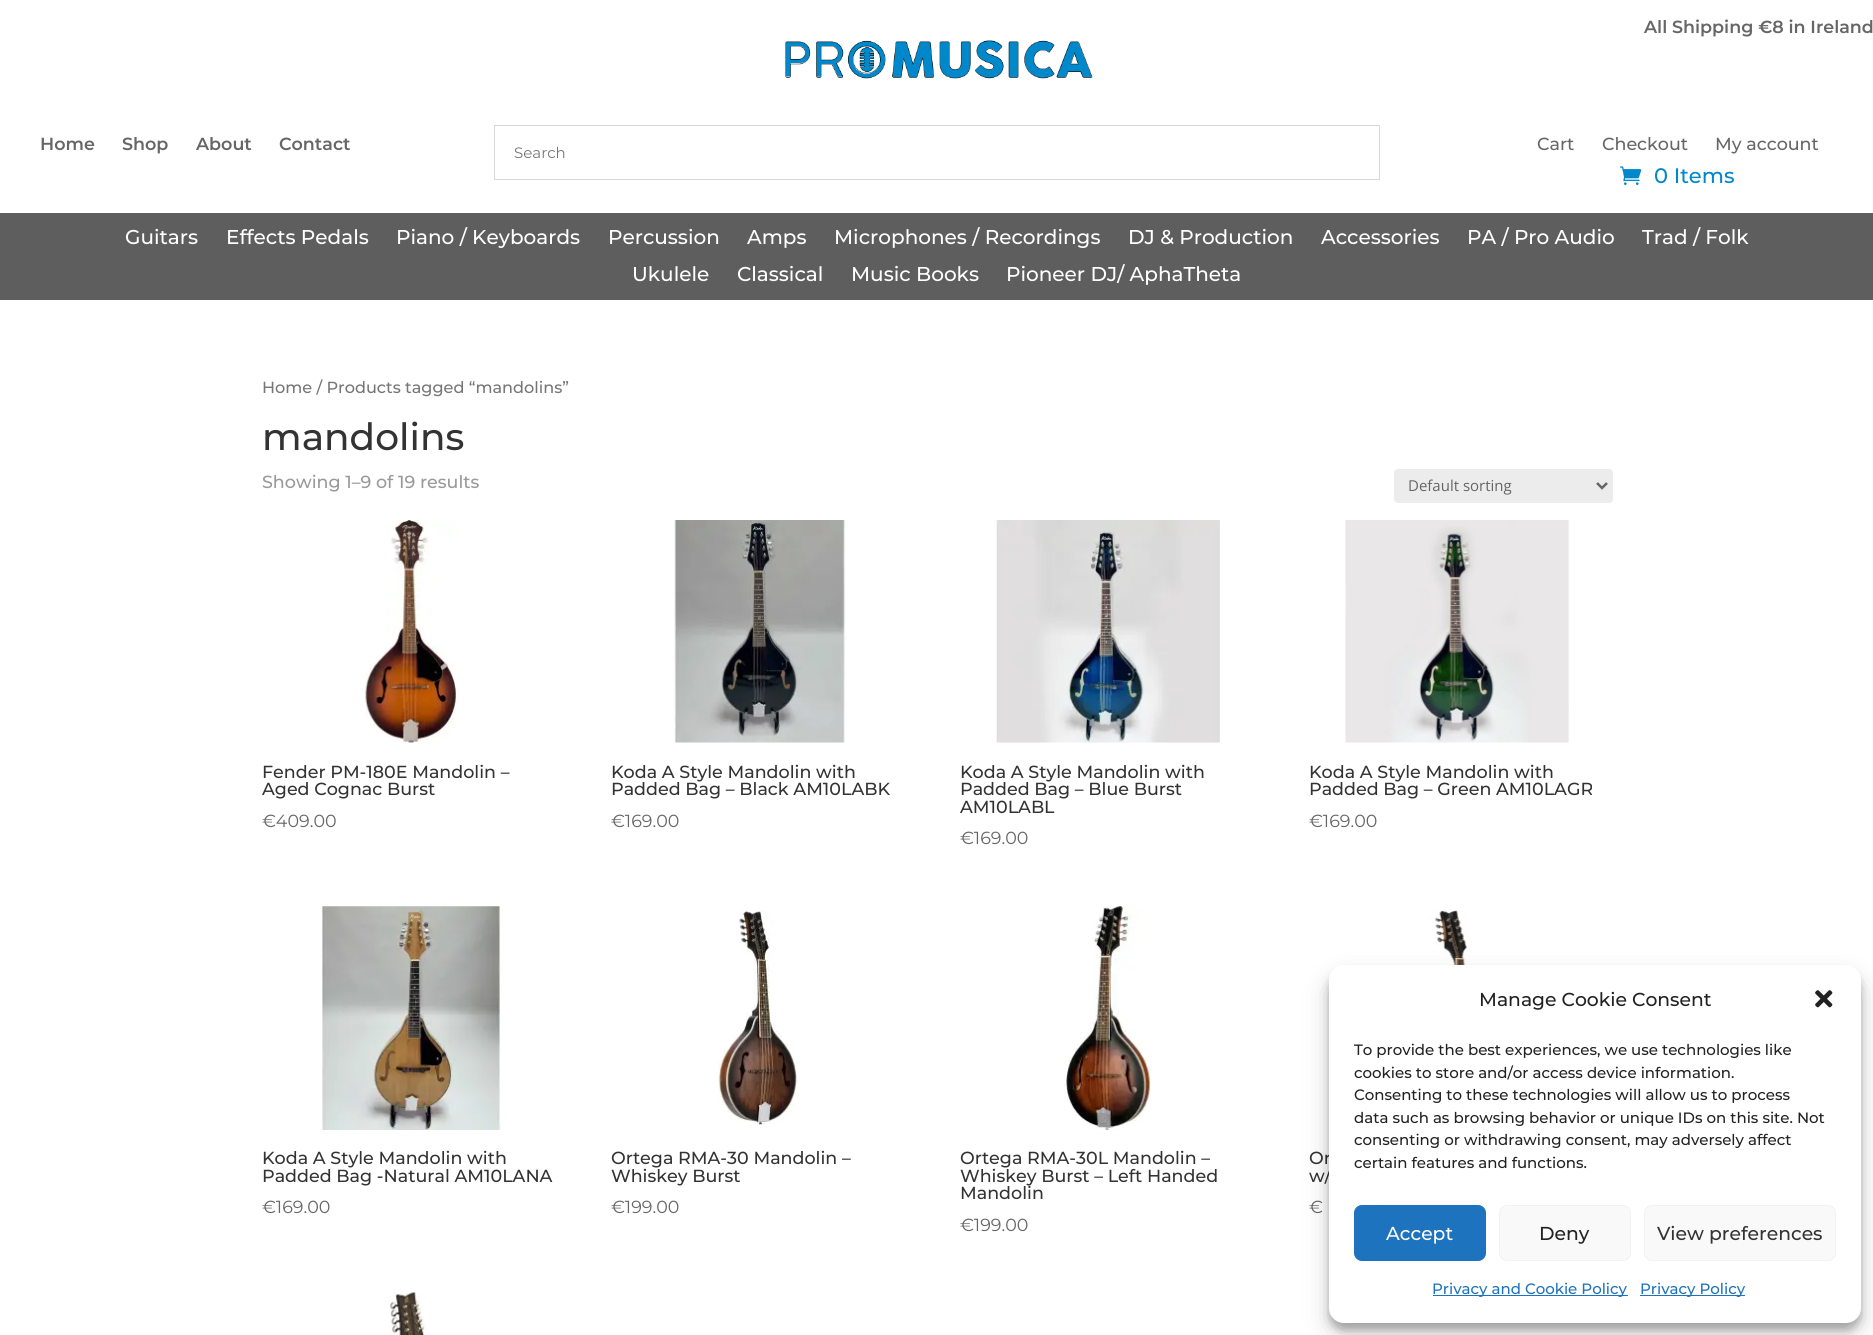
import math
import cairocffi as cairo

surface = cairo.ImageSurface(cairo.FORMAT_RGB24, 1873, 1335)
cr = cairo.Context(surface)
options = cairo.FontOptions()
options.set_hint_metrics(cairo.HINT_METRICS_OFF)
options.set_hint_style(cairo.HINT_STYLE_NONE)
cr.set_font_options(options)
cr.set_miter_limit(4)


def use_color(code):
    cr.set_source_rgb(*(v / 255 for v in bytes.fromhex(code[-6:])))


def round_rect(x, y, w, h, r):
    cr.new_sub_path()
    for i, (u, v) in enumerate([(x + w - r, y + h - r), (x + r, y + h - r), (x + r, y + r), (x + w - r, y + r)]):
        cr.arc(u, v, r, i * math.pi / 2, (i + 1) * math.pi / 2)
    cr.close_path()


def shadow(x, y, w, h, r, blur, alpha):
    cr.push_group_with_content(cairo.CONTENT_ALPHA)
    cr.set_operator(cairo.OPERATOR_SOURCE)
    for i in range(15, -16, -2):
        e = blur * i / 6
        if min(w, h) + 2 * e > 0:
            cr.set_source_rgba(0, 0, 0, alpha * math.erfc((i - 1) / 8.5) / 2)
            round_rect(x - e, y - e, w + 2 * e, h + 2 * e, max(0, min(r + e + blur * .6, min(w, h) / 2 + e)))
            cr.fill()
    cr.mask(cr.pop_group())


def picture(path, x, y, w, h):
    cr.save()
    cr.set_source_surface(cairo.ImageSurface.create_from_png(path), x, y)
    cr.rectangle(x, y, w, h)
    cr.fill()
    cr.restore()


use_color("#ffffff")
cr.paint()
cr.select_font_face("Montserrat SemiBold")
cr.set_font_size(17.5)
use_color("#666666")
cr.move_to(1644, 33)
cr.show_text("All Shipping €8 in Ireland")
picture("img1.png", 785, 40, 308, 39)
cr.move_to(40, 150)
cr.show_text("Home")
cr.move_to(122, 150)
cr.show_text("Shop")
cr.move_to(196, 150)
cr.show_text("About")
cr.move_to(279, 150)
cr.show_text("Contact")
cr.rectangle(494.5, 125.5, 885, 54)
use_color("#d8d8d8")
cr.set_line_width(1)
cr.stroke()
cr.select_font_face("Montserrat")
cr.set_font_size(15)
use_color("#767676")
cr.move_to(514, 158)
cr.show_text("Search")
cr.select_font_face("Montserrat Medium")
cr.set_font_size(17.5)
use_color("#666666")
cr.move_to(1537, 150)
cr.show_text("Cart")
cr.move_to(1602, 150)
cr.show_text("Checkout")
cr.move_to(1715, 150)
cr.show_text("My account")
picture("img2.png", 1620, 166, 22, 19)
cr.set_font_size(21)
use_color("#0188ca")
cr.move_to(1654, 183)
cr.show_text("0 Items")
use_color("#5e5e5e")
cr.rectangle(0, 213, 1873, 87)
cr.fill()
cr.set_font_size(20)
use_color("#ffffff")
cr.move_to(125, 244)
cr.show_text("Guitars")
cr.move_to(226, 244)
cr.show_text("Effects Pedals")
cr.move_to(396, 244)
cr.show_text("Piano / Keyboards")
cr.move_to(608, 244)
cr.show_text("Percussion")
cr.move_to(747, 244)
cr.show_text("Amps")
cr.move_to(834, 244)
cr.show_text("Microphones / Recordings")
cr.move_to(1128, 244)
cr.show_text("DJ & Production")
cr.move_to(1321, 244)
cr.show_text("Accessories")
cr.move_to(1467, 244)
cr.show_text("PA / Pro Audio")
cr.move_to(1642, 244)
cr.show_text("Trad / Folk")
cr.move_to(632, 281)
cr.show_text("Ukulele")
cr.move_to(737, 281)
cr.show_text("Classical")
cr.move_to(851, 281)
cr.show_text("Music Books")
cr.move_to(1006, 281)
cr.show_text("Pioneer DJ/ AphaTheta")
cr.set_font_size(16.1)
use_color("#767676")
cr.move_to(262, 393)
cr.show_text("Home / Products tagged “mandolins”")
cr.set_font_size(37.5)
use_color("#333333")
cr.move_to(262, 450)
cr.show_text("mandolins")
cr.set_font_size(17.5)
use_color("#999999")
cr.move_to(262, 488)
cr.show_text("Showing 1–9 of 19 results")
use_color("#ececec")
round_rect(1394, 469, 219, 34, 4)
cr.fill()
cr.new_path()
cr.move_to(1597, 483)
cr.line_to(1602, 488)
cr.line_to(1607, 483)
use_color("#666666")
cr.set_line_width(2.5)
cr.stroke()
cr.select_font_face("Open Sans")
cr.set_font_size(15)
cr.move_to(1408, 491)
cr.show_text("Default sorting")
picture("img3.png", 365, 520, 92, 223)
cr.select_font_face("Montserrat Medium")
cr.set_font_size(17.5)
use_color("#333333")
cr.move_to(262, 778)
cr.show_text("Fender PM-180E Mandolin –")
cr.move_to(262, 795)
cr.show_text("Aged Cognac Burst")
cr.select_font_face("Montserrat")
use_color("#666666")
cr.move_to(262, 827)
cr.show_text("€409.00")
picture("img4.png", 674, 520, 172, 223)
cr.select_font_face("Montserrat Medium")
use_color("#333333")
cr.move_to(611, 778)
cr.show_text("Koda A Style Mandolin with")
cr.move_to(611, 795)
cr.show_text("Padded Bag – Black AM10LABK")
cr.select_font_face("Montserrat")
use_color("#666666")
cr.move_to(611, 827)
cr.show_text("€169.00")
picture("img5.png", 996, 520, 224, 223)
cr.select_font_face("Montserrat Medium")
use_color("#333333")
cr.move_to(960, 778)
cr.show_text("Koda A Style Mandolin with")
cr.move_to(960, 795)
cr.show_text("Padded Bag – Blue Burst")
cr.move_to(960, 813)
cr.show_text("AM10LABL")
cr.select_font_face("Montserrat")
use_color("#666666")
cr.move_to(960, 844)
cr.show_text("€169.00")
picture("img6.png", 1345, 520, 224, 223)
cr.select_font_face("Montserrat Medium")
use_color("#333333")
cr.move_to(1309, 778)
cr.show_text("Koda A Style Mandolin with")
cr.move_to(1309, 795)
cr.show_text("Padded Bag – Green AM10LAGR")
cr.select_font_face("Montserrat")
use_color("#666666")
cr.move_to(1309, 827)
cr.show_text("€169.00")
picture("img7.png", 322, 906, 179, 224)
cr.select_font_face("Montserrat Medium")
use_color("#333333")
cr.move_to(262, 1164)
cr.show_text("Koda A Style Mandolin with")
cr.move_to(262, 1182)
cr.show_text("Padded Bag -Natural AM10LANA")
cr.select_font_face("Montserrat")
use_color("#666666")
cr.move_to(262, 1213)
cr.show_text("€169.00")
picture("img8.png", 718, 910, 80, 215)
cr.select_font_face("Montserrat Medium")
use_color("#333333")
cr.move_to(611, 1164)
cr.show_text("Ortega RMA-30 Mandolin –")
cr.move_to(611, 1182)
cr.show_text("Whiskey Burst")
cr.select_font_face("Montserrat")
use_color("#666666")
cr.move_to(611, 1213)
cr.show_text("€199.00")
picture("img9.png", 1064, 906, 87, 224)
cr.select_font_face("Montserrat Medium")
use_color("#333333")
cr.move_to(960, 1164)
cr.show_text("Ortega RMA-30L Mandolin –")
cr.move_to(960, 1182)
cr.show_text("Whiskey Burst – Left Handed")
cr.move_to(960, 1199)
cr.show_text("Mandolin")
cr.select_font_face("Montserrat")
use_color("#666666")
cr.move_to(960, 1231)
cr.show_text("€199.00")
picture("img10.png", 1415, 910, 83, 55)
cr.select_font_face("Montserrat Medium")
use_color("#333333")
cr.move_to(1309, 1164)
cr.show_text("Or")
cr.move_to(1309, 1182)
cr.show_text("w/")
cr.select_font_face("Montserrat")
use_color("#666666")
cr.move_to(1309, 1213)
cr.show_text("€")
picture("img11.png", 389, 1292, 37, 43)
use_color("#000000")
shadow(1329, 973, 532, 357, 15, 4, 0.23)
shadow(1329, 978, 532, 357, 15, 12.5, 0.19)
use_color("#ffffff")
round_rect(1329, 965, 532, 358, 15)
cr.fill()
cr.select_font_face("Montserrat Medium")
cr.set_font_size(18.75)
use_color("#222222")
cr.move_to(1479, 1006)
cr.show_text("Manage Cookie Consent")
picture("img12.png", 1815, 990, 18, 18)
cr.set_font_size(15)
cr.move_to(1354, 1055)
cr.show_text("To provide the best experiences, we use technologies like")
cr.move_to(1354, 1078)
cr.show_text("cookies to store and/or access device information.")
cr.move_to(1354, 1100)
cr.show_text("Consenting to these technologies will allow us to process")
cr.move_to(1354, 1123)
cr.show_text("data such as browsing behavior or unique IDs on this site. Not")
cr.move_to(1354, 1145)
cr.show_text("consenting or withdrawing consent, may adversely affect")
cr.move_to(1354, 1168)
cr.show_text("certain features and functions.")
use_color("#1e73be")
round_rect(1354.5, 1205.5, 131, 55, 7.5)
cr.fill_preserve()
cr.set_line_width(1)
cr.stroke()
cr.set_font_size(18.75)
use_color("#ffffff")
cr.move_to(1386, 1240)
cr.show_text("Accept")
use_color("#f9f9f9")
round_rect(1499.5, 1205.5, 131, 55, 7.5)
cr.fill_preserve()
use_color("#f2f2f2")
cr.stroke()
use_color("#222222")
cr.move_to(1539, 1240)
cr.show_text("Deny")
use_color("#f9f9f9")
round_rect(1644.5, 1205.5, 191, 55, 7.5)
cr.fill_preserve()
use_color("#f2f2f2")
cr.stroke()
use_color("#333333")
cr.move_to(1657, 1240)
cr.show_text("View preferences")
use_color("#1e73be")
cr.rectangle(1433, 1295, 195, 1)
cr.fill()
cr.set_font_size(15)
cr.move_to(1432, 1294)
cr.show_text("Privacy and Cookie Policy")
cr.rectangle(1640, 1295, 105, 1)
cr.fill()
cr.move_to(1640, 1294)
cr.show_text("Privacy Policy")
surface.write_to_png("result.png")
